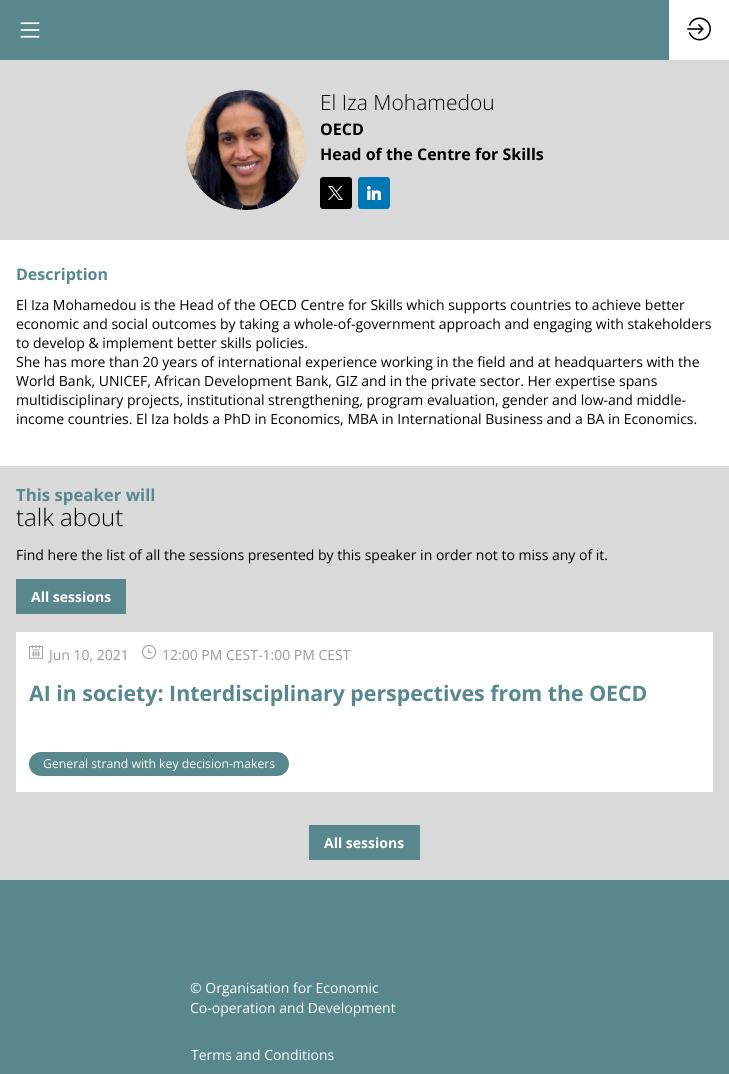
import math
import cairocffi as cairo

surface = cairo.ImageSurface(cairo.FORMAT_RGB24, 729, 1074)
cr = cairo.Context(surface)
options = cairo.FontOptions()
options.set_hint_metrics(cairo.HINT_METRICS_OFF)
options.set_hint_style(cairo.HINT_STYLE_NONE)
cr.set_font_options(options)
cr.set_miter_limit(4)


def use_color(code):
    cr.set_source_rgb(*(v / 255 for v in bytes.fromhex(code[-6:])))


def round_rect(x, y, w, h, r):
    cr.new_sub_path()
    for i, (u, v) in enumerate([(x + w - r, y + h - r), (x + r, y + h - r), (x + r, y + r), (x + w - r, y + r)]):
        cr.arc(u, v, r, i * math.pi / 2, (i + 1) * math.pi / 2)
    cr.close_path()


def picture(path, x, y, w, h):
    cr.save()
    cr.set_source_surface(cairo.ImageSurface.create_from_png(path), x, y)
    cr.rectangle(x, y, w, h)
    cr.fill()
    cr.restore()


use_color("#58888d")
cr.paint()
picture("img1.png", 20, 22, 20, 16)
use_color("#ffffff")
cr.rectangle(669, 0, 60, 60)
cr.fill()
picture("img2.png", 687, 17, 24, 24)
use_color("#d9d9d9")
cr.rectangle(0, 60, 729, 180)
cr.fill()
use_color("#cecece")
cr.arc(246, 150, 60, 0, 2 * math.pi)
cr.fill()
picture("img3.png", 186, 90, 120, 120)
cr.select_font_face("Open Sans Light")
cr.set_font_size(21)
use_color("#000000")
cr.move_to(320, 110)
cr.show_text("El Iza Mohamedou")
cr.select_font_face("Open Sans", cairo.FONT_SLANT_NORMAL, cairo.FONT_WEIGHT_BOLD)
cr.set_font_size(16)
cr.move_to(320, 135)
cr.show_text("OECD")
cr.move_to(320, 160)
cr.show_text("Head of the Centre for Skills")
round_rect(320, 177, 32, 32, 3)
cr.fill()
picture("img4.png", 328, 186, 15, 14)
use_color("#0077b5")
round_rect(358, 177, 32, 32, 3)
cr.fill()
picture("img5.png", 367, 186, 14, 14)
use_color("#ffffff")
cr.rectangle(0, 240, 729, 226)
cr.fill()
use_color("#58888d")
cr.move_to(16, 280)
cr.show_text("Description")
cr.select_font_face("Open Sans")
cr.set_font_size(14)
use_color("#000000")
cr.move_to(16, 310)
cr.show_text("El Iza Mohamedou is the Head of the OECD Centre for Skills which supports countries to achieve better")
cr.move_to(16, 329)
cr.show_text("economic and social outcomes by taking a whole-of-government approach and engaging with stakeholders")
cr.move_to(16, 348)
cr.show_text("to develop & implement better skills policies.")
cr.move_to(16, 367)
cr.show_text("She has more than 20 years of international experience working in the field and at headquarters with the")
cr.move_to(16, 386)
cr.show_text("World Bank, UNICEF, African Development Bank, GIZ and in the private sector. Her expertise spans")
cr.move_to(16, 405)
cr.show_text("multidisciplinary projects, institutional strengthening, program evaluation, gender and low-and middle-")
cr.move_to(16, 424)
cr.show_text("income countries. El Iza holds a PhD in Economics, MBA in International Business and a BA in Economics.")
use_color("#d9d9d9")
cr.rectangle(0, 466, 729, 414)
cr.fill()
cr.select_font_face("Open Sans", cairo.FONT_SLANT_NORMAL, cairo.FONT_WEIGHT_BOLD)
cr.set_font_size(16.75)
use_color("#58888d")
cr.move_to(16, 501)
cr.show_text("This speaker will")
cr.select_font_face("Open Sans Light")
cr.set_font_size(24)
use_color("#000000")
cr.move_to(16, 526)
cr.show_text("talk about")
cr.select_font_face("Open Sans")
cr.set_font_size(14)
cr.move_to(16, 560)
cr.show_text("Find here the list of all the sessions presented by this speaker in order not to miss any of it.")
use_color("#58888d")
cr.rectangle(16, 579, 110, 35)
cr.fill()
cr.select_font_face("Open Sans", cairo.FONT_SLANT_NORMAL, cairo.FONT_WEIGHT_BOLD)
use_color("#ffffff")
cr.move_to(31, 602)
cr.show_text("All sessions")
cr.rectangle(16, 632, 697, 160)
cr.fill()
picture("img6.png", 29, 645, 14, 14)
cr.select_font_face("Open Sans")
use_color("#999999")
cr.move_to(49, 660)
cr.show_text("Jun 10, 2021")
picture("img7.png", 142, 645, 14, 14)
cr.move_to(162, 660)
cr.show_text("12:00 PM CEST-1:00 PM CEST")
cr.select_font_face("Open Sans", cairo.FONT_SLANT_NORMAL, cairo.FONT_WEIGHT_BOLD)
cr.set_font_size(21.3)
use_color("#58888d")
cr.move_to(29, 701)
cr.show_text("AI in society: Interdisciplinary perspectives from the OECD")
round_rect(29, 752, 260, 24, 12)
cr.fill()
cr.select_font_face("Open Sans")
cr.set_font_size(12.25)
use_color("#ffffff")
cr.move_to(43, 768)
cr.show_text("General strand with key decision-makers")
use_color("#58888d")
cr.rectangle(309, 825, 111, 35)
cr.fill()
cr.select_font_face("Open Sans", cairo.FONT_SLANT_NORMAL, cairo.FONT_WEIGHT_BOLD)
cr.set_font_size(14)
use_color("#ffffff")
cr.move_to(324, 848)
cr.show_text("All sessions")
cr.select_font_face("Open Sans")
cr.move_to(190, 993)
cr.show_text("© Organisation for Economic")
cr.move_to(190, 1013)
cr.show_text("Co-operation and Development")
cr.move_to(191, 1060)
cr.show_text("Terms and Conditions")
surface.write_to_png("result.png")
